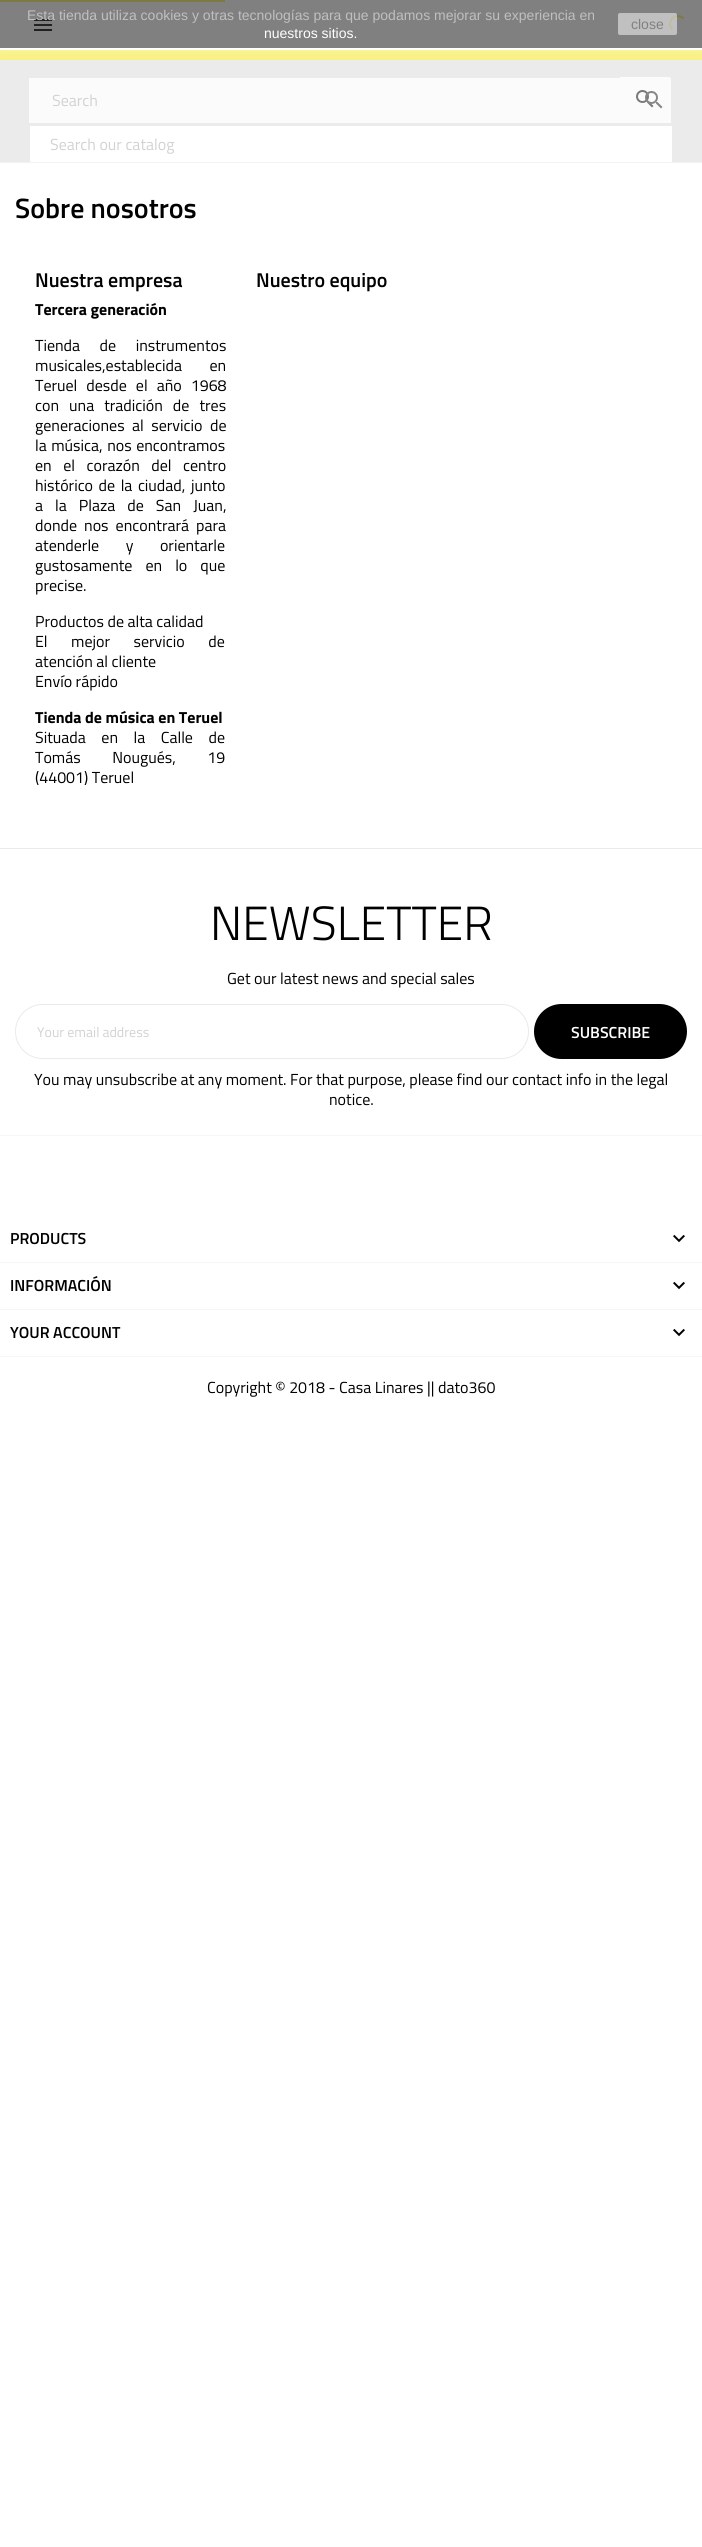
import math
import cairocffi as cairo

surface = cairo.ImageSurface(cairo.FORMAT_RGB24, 702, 2547)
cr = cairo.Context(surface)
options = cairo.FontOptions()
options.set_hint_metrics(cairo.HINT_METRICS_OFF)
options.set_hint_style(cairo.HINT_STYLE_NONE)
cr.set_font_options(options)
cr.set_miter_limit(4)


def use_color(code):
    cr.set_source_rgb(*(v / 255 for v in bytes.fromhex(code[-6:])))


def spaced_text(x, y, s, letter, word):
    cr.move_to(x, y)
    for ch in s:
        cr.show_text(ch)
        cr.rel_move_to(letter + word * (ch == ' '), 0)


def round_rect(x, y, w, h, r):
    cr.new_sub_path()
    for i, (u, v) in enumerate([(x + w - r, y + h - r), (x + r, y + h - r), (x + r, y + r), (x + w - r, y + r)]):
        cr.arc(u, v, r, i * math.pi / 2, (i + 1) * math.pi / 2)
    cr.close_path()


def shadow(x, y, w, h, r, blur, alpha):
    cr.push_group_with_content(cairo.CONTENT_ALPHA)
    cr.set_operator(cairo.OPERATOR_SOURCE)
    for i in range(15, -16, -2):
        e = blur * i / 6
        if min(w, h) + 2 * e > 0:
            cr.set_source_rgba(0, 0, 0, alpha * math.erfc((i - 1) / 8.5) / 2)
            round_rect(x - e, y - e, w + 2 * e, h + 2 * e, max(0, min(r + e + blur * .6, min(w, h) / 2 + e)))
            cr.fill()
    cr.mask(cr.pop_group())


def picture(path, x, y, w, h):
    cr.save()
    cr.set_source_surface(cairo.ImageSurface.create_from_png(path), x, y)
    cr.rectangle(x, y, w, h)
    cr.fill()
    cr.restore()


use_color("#ffffff")
cr.paint()
use_color("#808080")
cr.rectangle(0, 0, 702, 48)
cr.fill()
use_color("#7d7942")
cr.rectangle(0, 0, 225, 2)
cr.fill()
cr.new_path()
cr.move_to(672.5, 29.5)
cr.curve_to(665, 22, 676, 11, 683.5, 18.5)
cr.stroke()
use_color("#eaeaea")
cr.rectangle(0, 848, 702, 1)
cr.fill()
use_color("#f9f184")
cr.rectangle(0, 50, 702, 10)
cr.fill()
picture("img2.png", 34, 19, 18, 12)
use_color("#ebebeb")
cr.rectangle(0, 60, 702, 102)
cr.fill()
cr.save()
cr.rectangle(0, 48, 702, 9)
cr.clip()
use_color("#ffffff")
shadow(0, 0, 702, 48, 0, 5, 0.5)
cr.restore()
cr.select_font_face("Liberation Sans")
cr.set_font_size(14)
use_color("#bfbfbf")
cr.move_to(27, 20)
cr.show_text("Esta tienda utiliza cookies y otras tecnologías para que podamos mejorar su experiencia en")
use_color("#ffffff")
cr.move_to(264, 38)
cr.show_text("nuestros sitios.")
cr.set_source_rgba(1, 1, 1, 0.5)
round_rect(618, 13, 59, 22, 2)
cr.fill()
use_color("#808080")
cr.move_to(631, 29)
cr.show_text("close")
use_color("#f6f6f6")
cr.rectangle(0, 1262, 702, 1)
cr.fill()
cr.select_font_face("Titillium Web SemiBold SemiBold")
cr.set_font_size(16)
use_color("#000000")
cr.move_to(10, 1244)
cr.show_text("PRODUCTS")
picture("img1.png", 673, 1234, 12, 9)
use_color("#f6f6f6")
cr.rectangle(0, 1309, 702, 1)
cr.fill()
use_color("#000000")
cr.move_to(10, 1291)
cr.show_text("INFORMACIÓN")
picture("img1.png", 673, 1281, 12, 9)
use_color("#f6f6f6")
cr.rectangle(0, 1356, 702, 1)
cr.fill()
use_color("#000000")
cr.move_to(10, 1338)
cr.show_text("YOUR ACCOUNT")
picture("img1.png", 673, 1328, 12, 9)
use_color("#f6f6f6")
cr.rectangle(0, 1135, 702, 1)
cr.fill()
cr.select_font_face("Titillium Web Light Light")
cr.set_font_size(48)
use_color("#000000")
cr.move_to(210, 940)
cr.show_text("NEWSLETTER")
cr.select_font_face("Titillium Web")
cr.set_font_size(16)
cr.move_to(227, 984)
cr.show_text("Get our latest news and special sales")
round_rect(15.5, 1004.5, 513, 54, 27)
use_color("#eaeaea")
cr.set_line_width(1)
cr.stroke()
cr.set_font_size(14)
use_color("#d3d2d1")
cr.move_to(37, 1037)
cr.show_text("Your email address")
use_color("#000000")
round_rect(534, 1004, 153, 55, 27.5)
cr.fill()
cr.select_font_face("Titillium Web SemiBold SemiBold")
cr.set_font_size(16)
use_color("#ffffff")
cr.move_to(571, 1038)
cr.show_text("SUBSCRIBE")
cr.select_font_face("Titillium Web")
use_color("#000000")
cr.move_to(34, 1085)
cr.show_text("You may unsubscribe at any moment. For that purpose, please find our contact info in the legal")
cr.move_to(329, 1105)
cr.show_text("notice.")
cr.move_to(207, 1393)
cr.show_text("Copyright © 2018 - Casa Linares || dato360")
use_color("#f2f2f2")
cr.rectangle(0, 162, 702, 1)
cr.fill()
use_color("#fbfbfb")
cr.rectangle(29, 78, 642, 45)
cr.fill()
use_color("#d3d2d1")
cr.move_to(52, 106)
cr.show_text("Search")
use_color("#fbfbfb")
cr.rectangle(620, 77, 50, 1)
cr.fill()
picture("img3.png", 636, 90, 18, 18)
picture("img4.png", 645, 91, 18, 18)
use_color("#ffffff")
cr.rectangle(30, 126, 642, 36)
cr.fill()
use_color("#d3d2d1")
cr.move_to(50, 150)
cr.show_text("Search our catalog")
cr.select_font_face("Titillium Web SemiBold SemiBold")
cr.set_font_size(28)
use_color("#000000")
cr.move_to(15, 218)
cr.show_text("Sobre nosotros")
cr.set_font_size(20)
cr.move_to(35, 287)
cr.show_text("Nuestra empresa")
cr.select_font_face("Titillium Web", cairo.FONT_SLANT_NORMAL, cairo.FONT_WEIGHT_BOLD)
cr.set_font_size(16)
cr.move_to(35, 315)
cr.show_text("Tercera generación")
cr.select_font_face("Titillium Web")
spaced_text(35, 351, "Tienda de instrumentos", 0, 16)
spaced_text(35, 371, "musicales,establecida en", 0, 24)
spaced_text(35, 391, "Teruel desde el año 1968", 0, 5.5)
spaced_text(35, 411, "con una tradición de tres", 0, 6.5)
spaced_text(35, 431, "generaciones al servicio de", 0, 4)
spaced_text(35, 451, "la música, nos encontramos", 0, 1)
spaced_text(35, 471, "en el corazón del centro", 0, 8)
spaced_text(35, 491, "histórico de la ciudad, junto", 0, 2)
spaced_text(35, 511, "a la Plaza de San Juan,", 0, 8.5)
spaced_text(35, 531, "donde nos encontrará para", 0, 3.5)
spaced_text(35, 551, "atenderle y orientarle", 0, 23)
spaced_text(35, 571, "gustosamente en lo que", 0, 9.5)
cr.move_to(35, 591)
cr.show_text("precise.")
cr.move_to(35, 627)
cr.show_text("Productos de alta calidad")
spaced_text(35, 647, "El mejor servicio de", 0, 20)
cr.move_to(35, 667)
cr.show_text("atención al cliente")
cr.move_to(35, 687)
cr.show_text("Envío rápido")
cr.select_font_face("Titillium Web", cairo.FONT_SLANT_NORMAL, cairo.FONT_WEIGHT_BOLD)
cr.move_to(35, 723)
cr.show_text("Tienda de música en Teruel")
cr.select_font_face("Titillium Web")
spaced_text(35, 743, "Situada en la Calle de", 0, 12)
spaced_text(35, 763, "Tomás Nougués, 19", 0, 28)
cr.move_to(35, 783)
cr.show_text("(44001) Teruel")
cr.select_font_face("Titillium Web SemiBold SemiBold")
cr.set_font_size(20)
cr.move_to(256, 287)
cr.show_text("Nuestro equipo")
surface.write_to_png("result.png")
